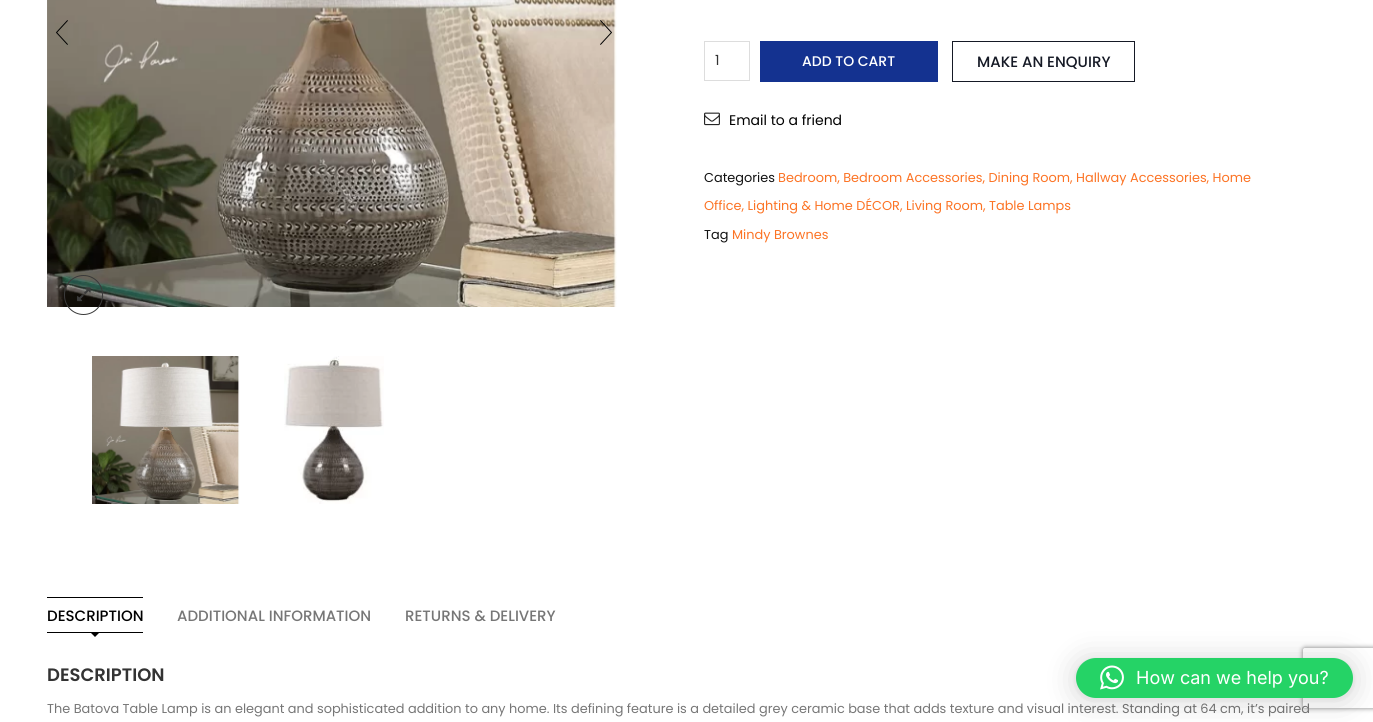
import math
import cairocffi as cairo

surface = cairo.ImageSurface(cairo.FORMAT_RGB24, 1373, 722)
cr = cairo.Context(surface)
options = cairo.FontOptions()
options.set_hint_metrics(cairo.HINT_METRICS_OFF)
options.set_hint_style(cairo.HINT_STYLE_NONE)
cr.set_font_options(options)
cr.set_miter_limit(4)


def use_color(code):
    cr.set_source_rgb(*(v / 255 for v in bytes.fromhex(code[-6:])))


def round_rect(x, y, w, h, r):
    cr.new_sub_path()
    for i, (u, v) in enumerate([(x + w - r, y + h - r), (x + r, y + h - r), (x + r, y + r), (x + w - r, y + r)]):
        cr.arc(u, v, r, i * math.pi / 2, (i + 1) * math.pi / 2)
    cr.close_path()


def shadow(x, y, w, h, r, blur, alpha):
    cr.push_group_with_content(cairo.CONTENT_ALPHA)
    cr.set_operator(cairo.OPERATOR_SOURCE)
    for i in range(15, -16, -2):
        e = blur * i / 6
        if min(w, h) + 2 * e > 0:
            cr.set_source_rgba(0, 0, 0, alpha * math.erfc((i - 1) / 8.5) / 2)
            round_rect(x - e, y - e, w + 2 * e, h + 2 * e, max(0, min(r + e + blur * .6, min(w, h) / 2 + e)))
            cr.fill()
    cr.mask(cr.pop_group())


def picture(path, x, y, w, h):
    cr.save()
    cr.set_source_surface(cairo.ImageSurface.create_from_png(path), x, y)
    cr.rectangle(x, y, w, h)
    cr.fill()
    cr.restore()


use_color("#ffffff")
cr.paint()
picture("img1.png", 47, 0, 570, 307)
round_rect(64.5, 275.5, 38, 39, 19)
use_color("#3a3a3a")
cr.set_line_width(1)
cr.stroke()
picture("img2.png", 77, 287, 14, 15)
picture("img3.png", 56, 20, 12, 25)
picture("img4.png", 600, 20, 12, 25)
picture("img5.png", 92, 356, 148, 148)
picture("img6.png", 284, 356, 100, 148)
cr.rectangle(704.5, 41.5, 45, 39)
use_color("#dddddd")
cr.stroke()
cr.select_font_face("Poppins")
cr.set_font_size(14)
use_color("#333333")
cr.move_to(715, 65)
cr.show_text("1")
use_color("#143290")
cr.rectangle(760, 41, 178, 41)
cr.fill()
cr.select_font_face("Poppins Medium")
use_color("#ffffff")
cr.move_to(802, 66)
cr.show_text("ADD TO CART")
cr.rectangle(952.5, 41.5, 182, 40)
use_color("#151925")
cr.stroke()
cr.set_font_size(15)
cr.move_to(977, 67)
cr.show_text("MAKE AN ENQUIRY")
picture("img7.png", 704, 112, 16, 14)
cr.select_font_face("Poppins")
cr.set_font_size(14)
use_color("#000000")
cr.move_to(729, 125)
cr.show_text("Email to a friend")
cr.set_font_size(12.88)
use_color("#111111")
cr.move_to(704, 182)
cr.show_text("Categories")
use_color("#fc7324")
cr.move_to(778, 182)
cr.show_text("Bedroom, Bedroom Accessories, Dining Room, Hallway Accessories, Home")
cr.move_to(704, 210)
cr.show_text("Office, Lighting & Home DÉCOR, Living Room, Table Lamps")
use_color("#111111")
cr.move_to(704, 239)
cr.show_text("Tag")
use_color("#fc7324")
cr.move_to(732, 239)
cr.show_text("Mindy Brownes")
use_color("#000000")
cr.rectangle(47, 597, 96, 1)
cr.fill()
cr.rectangle(47, 632, 96, 1)
cr.fill()
cr.select_font_face("Poppins Medium")
cr.set_font_size(15)
cr.move_to(47, 621)
cr.show_text("DESCRIPTION")
cr.new_path()
cr.move_to(91, 633)
cr.line_to(99, 633)
cr.line_to(95, 637)
cr.close_path()
cr.fill()
use_color("#767676")
cr.move_to(177, 621)
cr.show_text("ADDITIONAL INFORMATION")
cr.move_to(405, 621)
cr.show_text("RETURNS & DELIVERY")
cr.select_font_face("Poppins SemiBold")
cr.set_font_size(18)
use_color("#333333")
cr.move_to(47, 681)
cr.show_text("DESCRIPTION")
cr.select_font_face("Poppins")
cr.set_font_size(12.88)
use_color("#767676")
cr.move_to(47, 713)
cr.show_text("The Batova Table Lamp is an elegant and sophisticated addition to any home. Its defining feature is a detailed grey ceramic base that adds texture and visual interest. Standing at 64 cm, it’s paired")
cr.save()
cr.set_fill_rule(cairo.FILL_RULE_EVEN_ODD)
cr.new_path()
cr.move_to(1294, 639)
cr.line_to(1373, 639)
cr.line_to(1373, 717)
cr.line_to(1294, 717)
cr.close_path()
cr.move_to(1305, 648)
cr.line_to(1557, 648)
cr.curve_to(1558, 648, 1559, 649, 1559, 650)
cr.line_to(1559, 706)
cr.curve_to(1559, 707, 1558, 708, 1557, 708)
cr.line_to(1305, 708)
cr.curve_to(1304, 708, 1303, 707, 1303, 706)
cr.line_to(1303, 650)
cr.curve_to(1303, 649, 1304, 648, 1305, 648)
cr.close_path()
cr.clip()
use_color("#808080")
shadow(1303, 648, 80, 60, 2, 2.5, 1)
cr.restore()
use_color("#000000")
shadow(1076, 660, 277, 40, 20, 16, 0.16)
shadow(1076, 659, 277, 40, 20, 3, 0.06)
use_color("#25d366")
round_rect(1076, 658, 277, 40, 20)
cr.fill()
picture("img8.png", 1100, 665, 24, 25)
cr.select_font_face("Inter")
cr.set_font_size(18)
use_color("#ffffff")
cr.move_to(1136, 684)
cr.show_text("How can we help you?")
surface.write_to_png("result.png")
